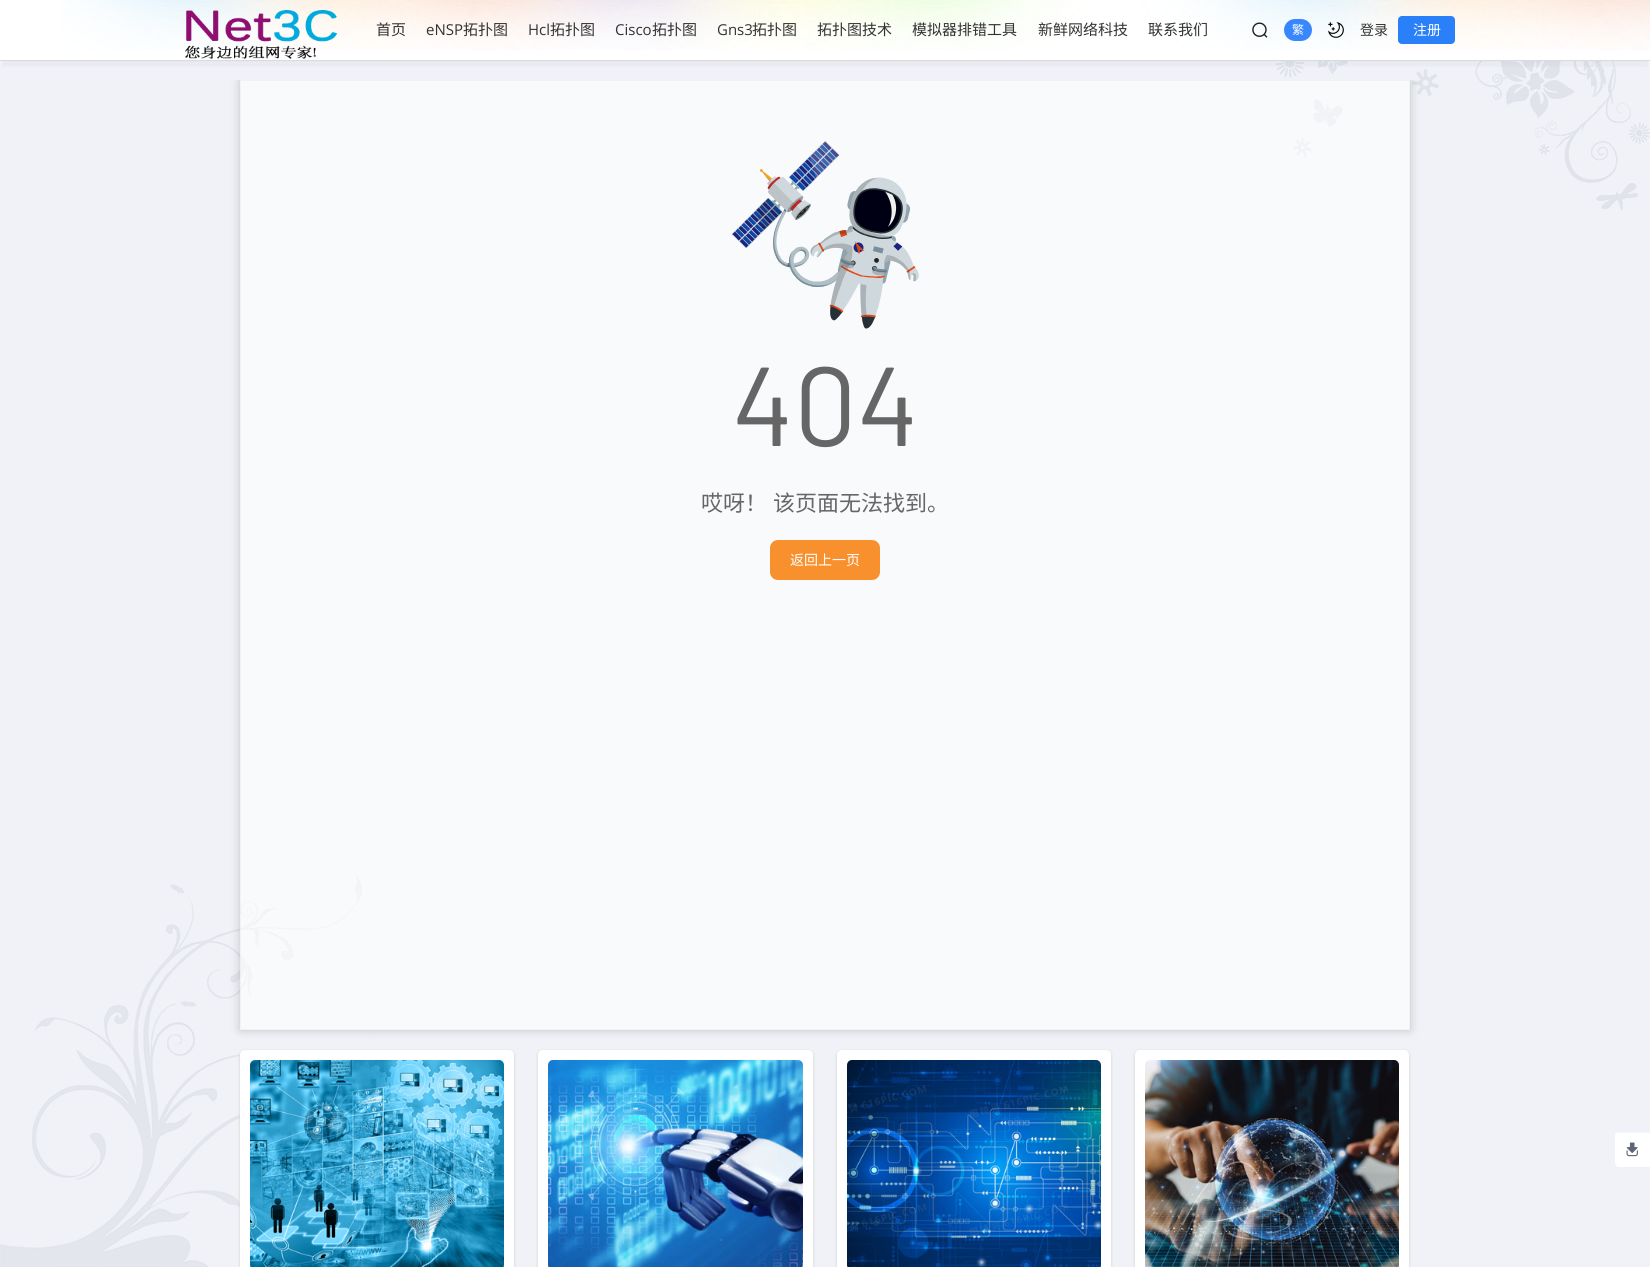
import math
import cairocffi as cairo

surface = cairo.ImageSurface(cairo.FORMAT_RGB24, 1650, 1267)
cr = cairo.Context(surface)
options = cairo.FontOptions()
options.set_hint_metrics(cairo.HINT_METRICS_OFF)
options.set_hint_style(cairo.HINT_STYLE_NONE)
cr.set_font_options(options)
cr.set_miter_limit(4)


def use_color(code):
    cr.set_source_rgb(*(v / 255 for v in bytes.fromhex(code[-6:])))


def spaced_text(x, y, s, letter, word):
    cr.move_to(x, y)
    for ch in s:
        cr.show_text(ch)
        cr.rel_move_to(letter + word * (ch == ' '), 0)


def round_rect(x, y, w, h, r):
    cr.new_sub_path()
    for i, (u, v) in enumerate([(x + w - r, y + h - r), (x + r, y + h - r), (x + r, y + r), (x + w - r, y + r)]):
        cr.arc(u, v, r, i * math.pi / 2, (i + 1) * math.pi / 2)
    cr.close_path()


def shadow(x, y, w, h, r, blur, alpha):
    cr.push_group_with_content(cairo.CONTENT_ALPHA)
    cr.set_operator(cairo.OPERATOR_SOURCE)
    for i in range(15, -16, -2):
        e = blur * i / 6
        if min(w, h) + 2 * e > 0:
            cr.set_source_rgba(0, 0, 0, alpha * math.erfc((i - 1) / 8.5) / 2)
            round_rect(x - e, y - e, w + 2 * e, h + 2 * e, max(0, min(r + e + blur * .6, min(w, h) / 2 + e)))
            cr.fill()
    cr.mask(cr.pop_group())


def picture(path, x, y, w, h):
    cr.save()
    cr.set_source_surface(cairo.ImageSurface.create_from_png(path), x, y)
    cr.rectangle(x, y, w, h)
    cr.fill()
    cr.restore()


use_color("#f0f2f7")
cr.paint()
picture("img1.png", 0, 61, 1650, 1206)
use_color("#ffffff")
cr.rectangle(0, 0, 1650, 59)
cr.fill()
use_color("#dcdcdc")
cr.rectangle(0, 59, 1650, 1)
cr.fill()
cr.save()
cr.rectangle(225, 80, 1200, 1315)
cr.clip()
cr.set_fill_rule(cairo.FILL_RULE_EVEN_ODD)
cr.new_path()
cr.move_to(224, 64)
cr.line_to(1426, 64)
cr.line_to(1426, 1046)
cr.line_to(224, 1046)
cr.close_path()
cr.move_to(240, 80)
cr.line_to(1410, 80)
cr.line_to(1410, 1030)
cr.line_to(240, 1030)
cr.close_path()
cr.clip()
use_color("#000000")
shadow(240, 80, 1170, 950, 0, 5, 0.2)
cr.restore()
cr.set_source_rgba(1, 1, 1, 0.58)
cr.rectangle(240, 80, 1170, 950)
cr.fill()
cr.rectangle(240.5, 80.5, 1169, 949)
cr.set_source_rgba(0.867, 0.867, 0.867, 0.28)
cr.set_line_width(1)
cr.stroke()
cr.save()
cr.rectangle(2, 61, 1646, 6)
cr.clip()
use_color("#113a5d")
shadow(3, 6, 1644, 55, 0, 7.5, 0.1)
cr.restore()
cr.set_source_rgba(1, 1, 1, 0.98)
cr.rectangle(0, 59, 1650, 1)
cr.fill()
picture("img2.png", 61, 0, 1589, 50)
use_color("#dbdbdb")
cr.rectangle(0, 60, 1650, 1)
cr.fill()
picture("img3.png", 185, 10, 153, 49)
cr.select_font_face("Noto Sans CJK SC")
cr.set_font_size(15)
use_color("#333333")
cr.move_to(376, 35)
cr.show_text("首页")
cr.select_font_face("Open Sans")
cr.move_to(426, 35)
cr.show_text("eNSP")
cr.select_font_face("Noto Sans CJK SC")
cr.move_to(463, 35)
cr.show_text("拓扑图")
cr.select_font_face("Open Sans")
cr.move_to(528, 35)
cr.show_text("Hcl")
cr.select_font_face("Noto Sans CJK SC")
cr.move_to(550, 35)
cr.show_text("拓扑图")
cr.select_font_face("Open Sans")
cr.move_to(615, 35)
cr.show_text("Cisco")
cr.select_font_face("Noto Sans CJK SC")
cr.move_to(652, 35)
cr.show_text("拓扑图")
cr.select_font_face("Open Sans")
cr.move_to(717, 35)
cr.show_text("Gns3")
cr.select_font_face("Noto Sans CJK SC")
cr.move_to(752, 35)
cr.show_text("拓扑图")
cr.move_to(817, 35)
cr.show_text("拓扑图技术")
cr.move_to(912, 35)
cr.show_text("模拟器排错工具")
cr.move_to(1038, 35)
cr.show_text("新鲜网络科技")
cr.move_to(1148, 35)
cr.show_text("联系我们")
picture("img4.png", 1252, 22, 16, 16)
use_color("#3987fe")
round_rect(1284, 19, 28, 22, 11)
cr.fill()
cr.set_font_size(12)
use_color("#ffffff")
cr.move_to(1292, 34)
cr.show_text("繁")
picture("img5.png", 1328, 22, 16, 16)
cr.set_font_size(14)
use_color("#333333")
cr.move_to(1360, 35)
cr.show_text("登录")
use_color("#2a80f9")
round_rect(1398, 16, 57, 28, 4)
cr.fill()
use_color("#ffffff")
cr.move_to(1413, 35)
cr.show_text("注册")
picture("img6.png", 732, 141, 187, 188)
cr.select_font_face("Barlow")
cr.set_font_size(112)
use_color("#666666")
cr.move_to(732, 446)
cr.show_text("404")
cr.select_font_face("Noto Sans CJK SC")
cr.set_font_size(22)
spaced_text(701, 511, "哎呀！ 该页面无法找到。", 0, 1)
use_color("#f8912d")
round_rect(770, 540, 110, 40, 8)
cr.fill()
cr.set_font_size(14)
use_color("#ffffff")
cr.move_to(790, 565)
cr.show_text("返回上一页")
use_color("#cecece")
shadow(240, 1051, 274, 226, 5, 1.5, 1)
use_color("#ffffff")
round_rect(240, 1050, 274, 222, 5)
cr.fill()
picture("img7.png", 250, 1060, 254, 207)
use_color("#cecece")
shadow(538, 1051, 275, 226, 5, 1.5, 1)
use_color("#ffffff")
round_rect(538, 1050, 275, 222, 5)
cr.fill()
picture("img8.png", 548, 1060, 255, 207)
use_color("#cecece")
shadow(837, 1051, 274, 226, 5, 1.5, 1)
use_color("#ffffff")
round_rect(837, 1050, 274, 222, 5)
cr.fill()
picture("img9.png", 847, 1060, 254, 207)
use_color("#cecece")
shadow(1135, 1051, 274, 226, 5, 1.5, 1)
use_color("#ffffff")
round_rect(1135, 1050, 274, 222, 5)
cr.fill()
picture("img10.png", 1145, 1060, 254, 207)
cr.new_path()
cr.move_to(1619, 1132)
cr.line_to(1650, 1132)
cr.line_to(1650, 1167)
cr.line_to(1619, 1167)
cr.curve_to(1617, 1167, 1615, 1165, 1615, 1163)
cr.line_to(1615, 1136)
cr.curve_to(1615, 1134, 1617, 1132, 1619, 1132)
cr.close_path()
cr.fill()
use_color("#f5f6f7")
cr.rectangle(1615, 1132, 35, 1)
cr.fill()
picture("img11.png", 1626, 1142, 12, 15)
surface.write_to_png("result.png")
